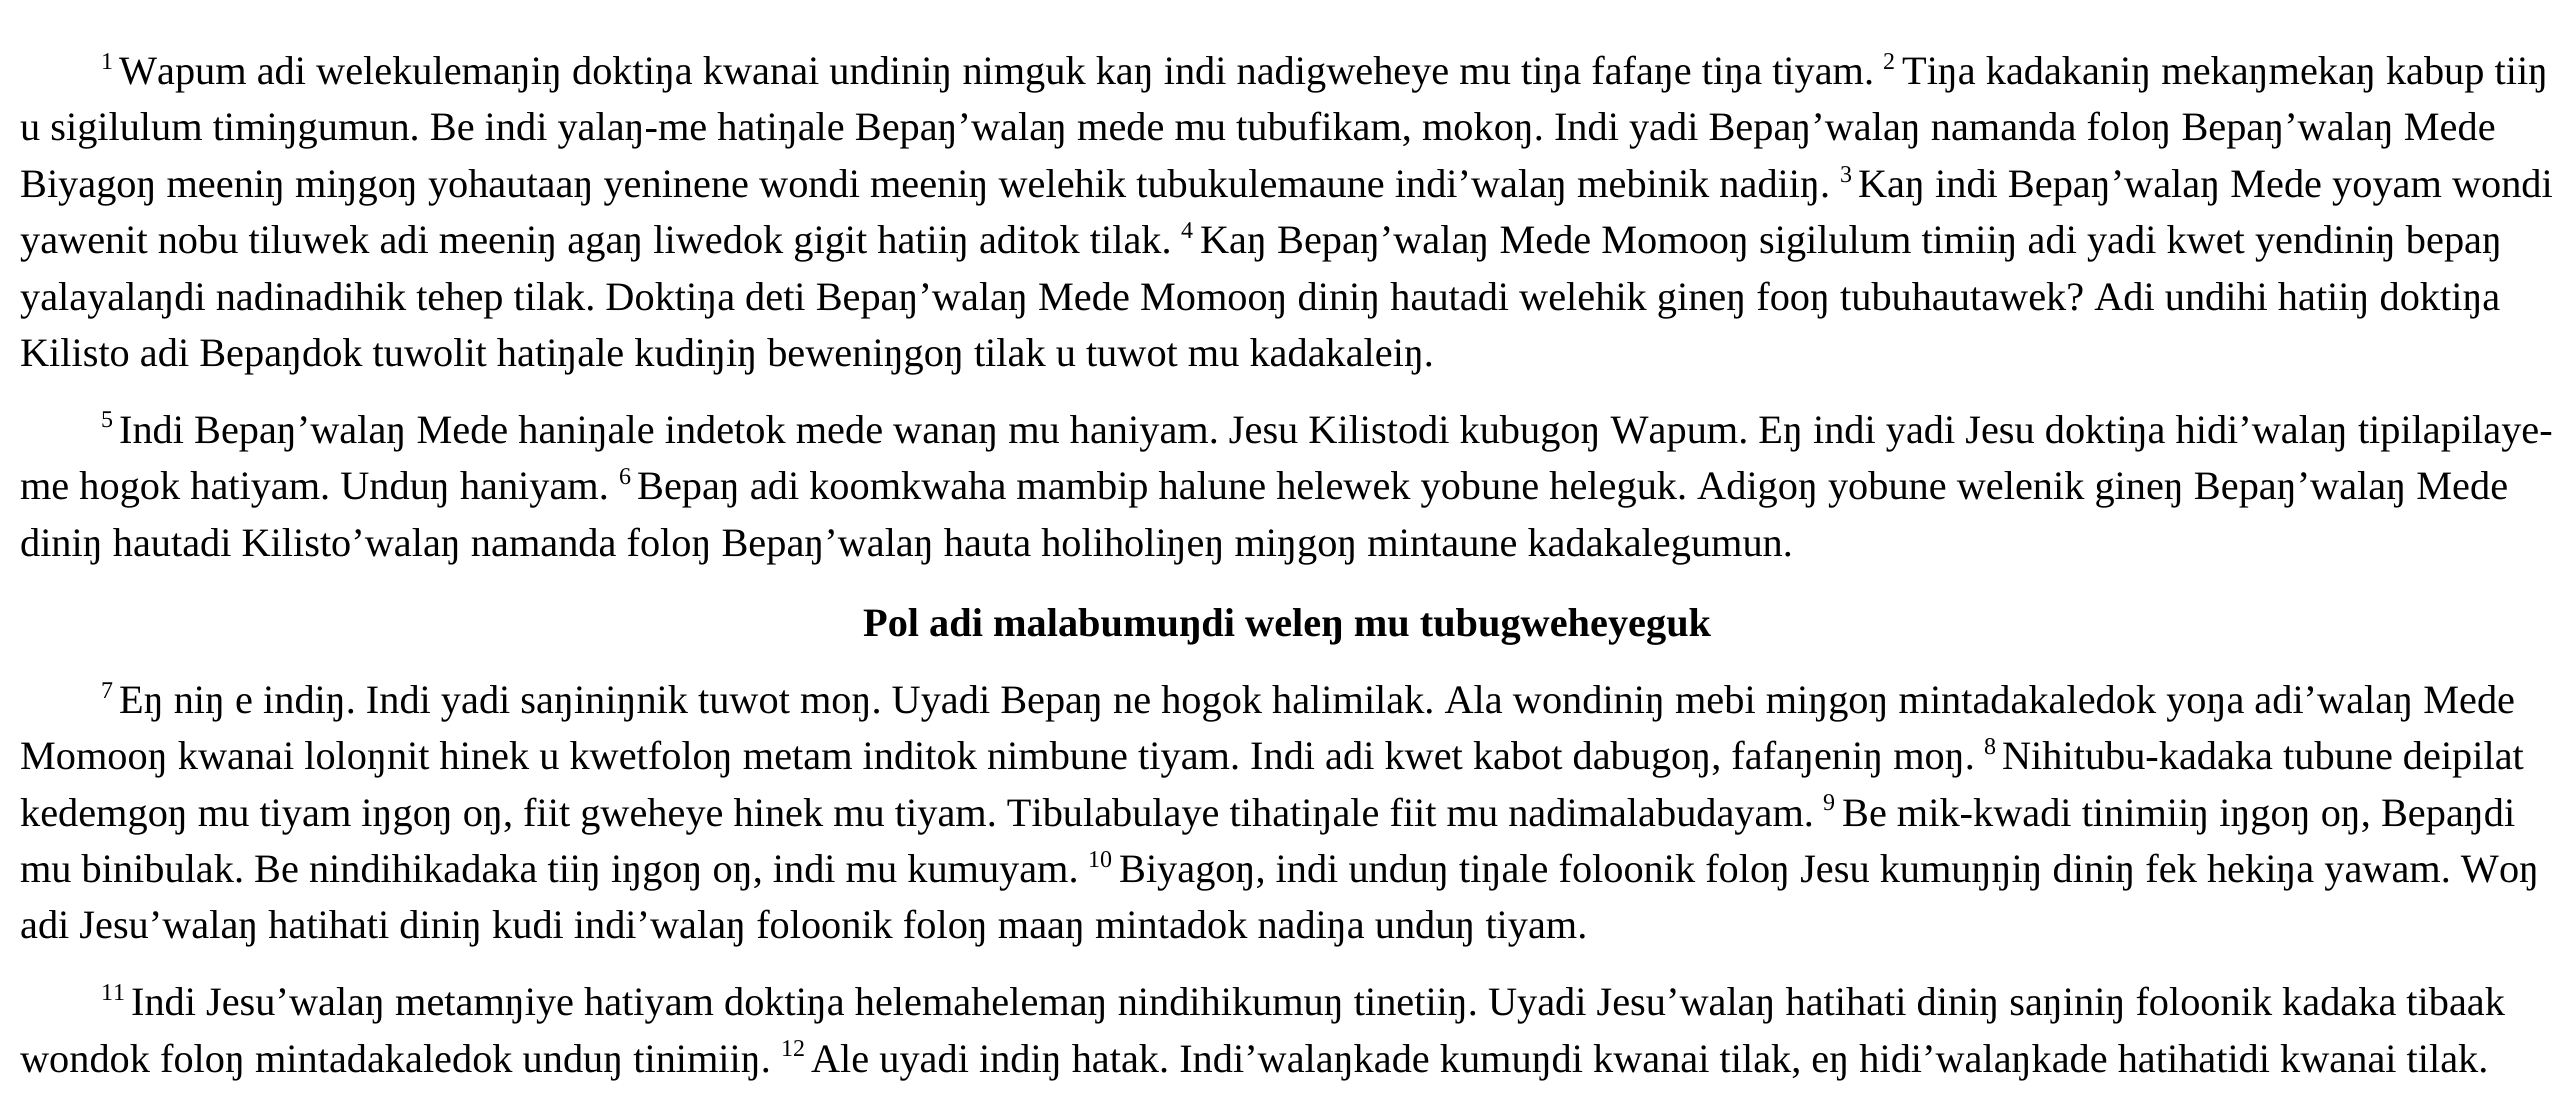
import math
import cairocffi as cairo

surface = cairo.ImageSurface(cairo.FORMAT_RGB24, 2573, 1114)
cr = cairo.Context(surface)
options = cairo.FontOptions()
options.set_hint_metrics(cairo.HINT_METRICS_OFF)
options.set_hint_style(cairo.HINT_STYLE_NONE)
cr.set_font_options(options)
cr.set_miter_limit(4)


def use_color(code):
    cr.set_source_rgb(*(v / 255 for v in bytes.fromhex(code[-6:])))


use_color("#ffffff")
cr.paint()
cr.select_font_face("Liberation Serif")
cr.set_font_size(24)
use_color("#000000")
cr.move_to(101, 69)
cr.show_text("1")
cr.set_font_size(40.32)
cr.move_to(119, 84)
cr.show_text("Wapum adi welekulemaŋiŋ doktiŋa kwanai undiniŋ nimguk kaŋ indi nadigweheye mu tiŋa fafaŋe tiŋa tiyam.")
cr.set_font_size(24)
cr.move_to(1883, 69)
cr.show_text("2")
cr.set_font_size(40.32)
cr.move_to(1902, 84)
cr.show_text("Tiŋa kadakaniŋ mekaŋmekaŋ kabup tiiŋ")
cr.move_to(20, 140)
cr.show_text("u sigilulum timiŋgumun. Be indi yalaŋ-me hatiŋale Bepaŋ’walaŋ mede mu tubufikam, mokoŋ. Indi yadi Bepaŋ’walaŋ namanda foloŋ Bepaŋ’walaŋ Mede")
cr.move_to(20, 197)
cr.show_text("Biyagoŋ meeniŋ miŋgoŋ yohautaaŋ yeninene wondi meeniŋ welehik tubukulemaune indi’walaŋ mebinik nadiiŋ.")
cr.set_font_size(24)
cr.move_to(1840, 182)
cr.show_text("3")
cr.set_font_size(40.32)
cr.move_to(1858, 197)
cr.show_text("Kaŋ indi Bepaŋ’walaŋ Mede yoyam wondi")
cr.move_to(20, 253)
cr.show_text("yawenit nobu tiluwek adi meeniŋ agaŋ liwedok gigit hatiiŋ aditok tilak.")
cr.set_font_size(24)
cr.move_to(1181, 238)
cr.show_text("4")
cr.set_font_size(40.32)
cr.move_to(1200, 253)
cr.show_text("Kaŋ Bepaŋ’walaŋ Mede Momooŋ sigilulum timiiŋ adi yadi kwet yendiniŋ bepaŋ")
cr.move_to(20, 310)
cr.show_text("yalayalaŋdi nadinadihik tehep tilak. Doktiŋa deti Bepaŋ’walaŋ Mede Momooŋ diniŋ hautadi welehik gineŋ fooŋ tubuhautawek? Adi undihi hatiiŋ doktiŋa")
cr.move_to(20, 366)
cr.show_text("Kilisto adi Bepaŋdok tuwolit hatiŋale kudiŋiŋ beweniŋgoŋ tilak u tuwot mu kadakaleiŋ.")
cr.set_font_size(24)
cr.move_to(101, 427)
cr.show_text("5")
cr.set_font_size(40.32)
cr.move_to(119, 443)
cr.show_text("Indi Bepaŋ’walaŋ Mede haniŋale indetok mede wanaŋ mu haniyam. Jesu Kilistodi kubugoŋ Wapum. Eŋ indi yadi Jesu doktiŋa hidi’walaŋ tipilapilaye-")
cr.move_to(20, 499)
cr.show_text("me hogok hatiyam. Unduŋ haniyam.")
cr.set_font_size(24)
cr.move_to(619, 484)
cr.show_text("6")
cr.set_font_size(40.32)
cr.move_to(637, 499)
cr.show_text("Bepaŋ adi koomkwaha mambip halune helewek yobune heleguk. Adigoŋ yobune welenik gineŋ Bepaŋ’walaŋ Mede")
cr.move_to(20, 556)
cr.show_text("diniŋ hautadi Kilisto’walaŋ namanda foloŋ Bepaŋ’walaŋ hauta holiholiŋeŋ miŋgoŋ mintaune kadakalegumun.")
cr.select_font_face("Liberation Serif", cairo.FONT_SLANT_NORMAL, cairo.FONT_WEIGHT_BOLD)
cr.move_to(863, 636)
cr.show_text("Pol adi malabumuŋdi weleŋ mu tubugweheyeguk")
cr.select_font_face("Liberation Serif")
cr.set_font_size(24)
cr.move_to(101, 698)
cr.show_text("7")
cr.set_font_size(40.32)
cr.move_to(119, 713)
cr.show_text("Eŋ niŋ e indiŋ. Indi yadi saŋiniŋnik tuwot moŋ. Uyadi Bepaŋ ne hogok halimilak. Ala wondiniŋ mebi miŋgoŋ mintadakaledok yoŋa adi’walaŋ Mede")
cr.move_to(20, 769)
cr.show_text("Momooŋ kwanai loloŋnit hinek u kwetfoloŋ metam inditok nimbune tiyam. Indi adi kwet kabot dabugoŋ, fafaŋeniŋ moŋ.")
cr.set_font_size(24)
cr.move_to(1984, 754)
cr.show_text("8")
cr.set_font_size(40.32)
cr.move_to(2002, 769)
cr.show_text("Nihitubu-kadaka tubune deipilat")
cr.move_to(20, 826)
cr.show_text("kedemgoŋ mu tiyam iŋgoŋ oŋ, fiit gweheye hinek mu tiyam. Tibulabulaye tihatiŋale fiit mu nadimalabudayam.")
cr.set_font_size(24)
cr.move_to(1823, 810)
cr.show_text("9")
cr.set_font_size(40.32)
cr.move_to(1842, 826)
cr.show_text("Be mik-kwadi tinimiiŋ iŋgoŋ oŋ, Bepaŋdi")
cr.move_to(20, 882)
cr.show_text("mu binibulak. Be nindihikadaka tiiŋ iŋgoŋ oŋ, indi mu kumuyam.")
cr.set_font_size(24)
cr.move_to(1088, 867)
cr.show_text("10")
cr.set_font_size(40.32)
cr.move_to(1119, 882)
cr.show_text("Biyagoŋ, indi unduŋ tiŋale foloonik foloŋ Jesu kumuŋŋiŋ diniŋ fek hekiŋa yawam. Woŋ")
cr.move_to(20, 938)
cr.show_text("adi Jesu’walaŋ hatihati diniŋ kudi indi’walaŋ foloonik foloŋ maaŋ mintadok nadiŋa unduŋ tiyam.")
cr.set_font_size(24)
cr.move_to(101, 1000)
cr.show_text("11")
cr.set_font_size(40.32)
cr.move_to(131, 1015)
cr.show_text("Indi Jesu’walaŋ metamŋiye hatiyam doktiŋa helemahelemaŋ nindihikumuŋ tinetiiŋ. Uyadi Jesu’walaŋ hatihati diniŋ saŋiniŋ foloonik kadaka tibaak")
cr.move_to(20, 1072)
cr.show_text("wondok foloŋ mintadakaledok unduŋ tinimiiŋ.")
cr.set_font_size(24)
cr.move_to(781, 1056)
cr.show_text("12")
cr.set_font_size(40.32)
cr.move_to(811, 1072)
cr.show_text("Ale uyadi indiŋ hatak. Indi’walaŋkade kumuŋdi kwanai tilak, eŋ hidi’walaŋkade hatihatidi kwanai tilak.")
surface.write_to_png("result.png")
